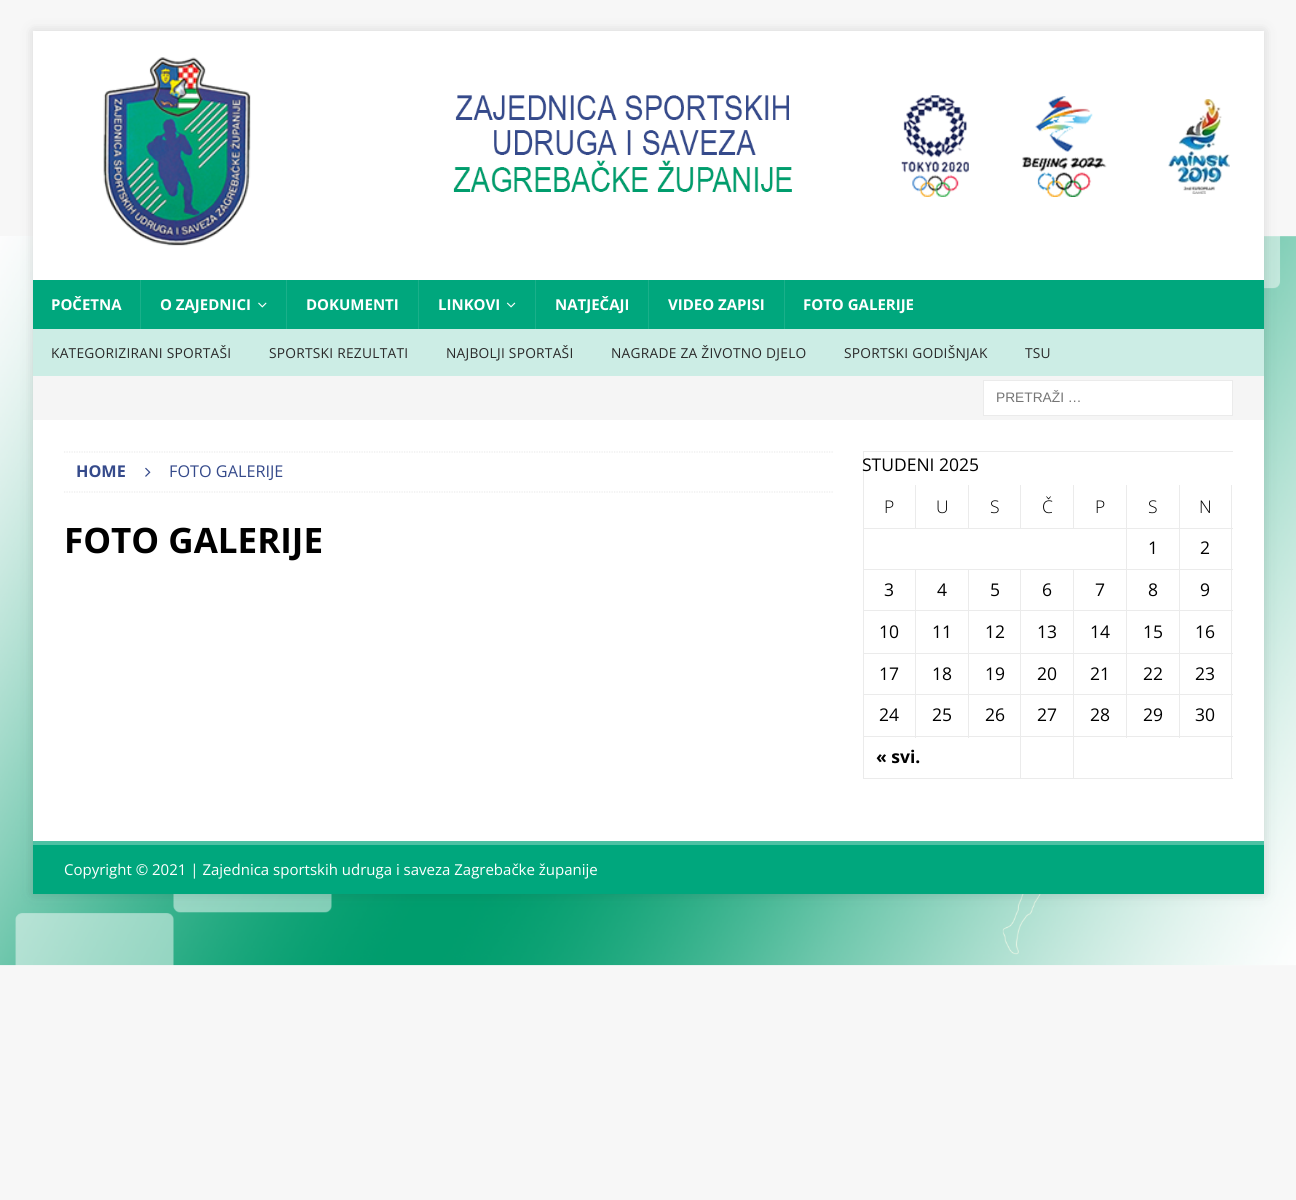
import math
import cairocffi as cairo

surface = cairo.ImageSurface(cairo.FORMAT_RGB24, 1296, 1200)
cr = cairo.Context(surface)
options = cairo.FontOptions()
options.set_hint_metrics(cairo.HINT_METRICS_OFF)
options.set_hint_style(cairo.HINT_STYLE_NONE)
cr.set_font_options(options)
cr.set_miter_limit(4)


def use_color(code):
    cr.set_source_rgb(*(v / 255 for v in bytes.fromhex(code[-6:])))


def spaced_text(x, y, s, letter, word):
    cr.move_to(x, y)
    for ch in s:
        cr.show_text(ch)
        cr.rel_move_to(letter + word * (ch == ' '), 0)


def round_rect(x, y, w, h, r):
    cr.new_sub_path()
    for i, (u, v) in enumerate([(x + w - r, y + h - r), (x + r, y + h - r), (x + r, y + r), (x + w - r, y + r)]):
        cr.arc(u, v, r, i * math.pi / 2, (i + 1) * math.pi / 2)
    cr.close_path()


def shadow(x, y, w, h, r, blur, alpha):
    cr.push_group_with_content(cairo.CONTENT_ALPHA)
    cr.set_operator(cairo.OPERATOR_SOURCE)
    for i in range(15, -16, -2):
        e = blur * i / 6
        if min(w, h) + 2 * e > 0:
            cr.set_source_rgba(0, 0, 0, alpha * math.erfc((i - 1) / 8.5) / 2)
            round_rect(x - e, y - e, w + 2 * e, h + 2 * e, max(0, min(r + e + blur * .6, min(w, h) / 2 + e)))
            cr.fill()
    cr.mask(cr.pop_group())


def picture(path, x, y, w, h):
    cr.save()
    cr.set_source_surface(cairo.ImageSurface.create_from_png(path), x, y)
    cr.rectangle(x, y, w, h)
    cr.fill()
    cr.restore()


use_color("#f7f7f7")
cr.paint()
picture("img1.png", 0, 236, 1296, 730)
use_color("#323232")
shadow(33, 31, 1231, 863, 0, 6, 0.17)
use_color("#ffffff")
cr.rectangle(33, 31, 1231, 249)
cr.fill()
picture("img2.png", 103, 57, 148, 189)
picture("img3.png", 453, 95, 777, 102)
use_color("#00a77d")
cr.rectangle(33, 280, 1231, 49)
cr.fill()
cr.select_font_face("Open Sans", cairo.FONT_SLANT_NORMAL, cairo.FONT_WEIGHT_BOLD)
cr.set_font_size(15)
use_color("#ffffff")
cr.move_to(51, 310)
cr.show_text("POČETNA")
use_color("#1ab08a")
cr.rectangle(140, 280, 1, 49)
cr.fill()
use_color("#ffffff")
cr.move_to(160, 310)
cr.show_text("O ZAJEDNICI")
picture("img4.png", 258, 302, 9, 6)
use_color("#1ab08a")
cr.rectangle(286, 280, 1, 49)
cr.fill()
use_color("#ffffff")
cr.move_to(306, 310)
cr.show_text("DOKUMENTI")
use_color("#1ab08a")
cr.rectangle(418, 280, 1, 49)
cr.fill()
use_color("#ffffff")
cr.move_to(438, 310)
cr.show_text("LINKOVI")
picture("img5.png", 506, 302, 10, 6)
use_color("#1ab08a")
cr.rectangle(535, 280, 1, 49)
cr.fill()
use_color("#ffffff")
cr.move_to(555, 310)
cr.show_text("NATJEČAJI")
use_color("#1ab08a")
cr.rectangle(648, 280, 1, 49)
cr.fill()
use_color("#ffffff")
cr.move_to(668, 310)
cr.show_text("VIDEO ZAPISI")
use_color("#1ab08a")
cr.rectangle(784, 280, 1, 49)
cr.fill()
use_color("#ffffff")
cr.move_to(803, 310)
cr.show_text("FOTO GALERIJE")
use_color("#ccede5")
cr.rectangle(33, 329, 1231, 47)
cr.fill()
cr.select_font_face("Open Sans")
cr.set_font_size(13.75)
use_color("#2a2a2a")
spaced_text(51, 358, "KATEGORIZIRANI SPORTAŠI", 0.25, 0)
spaced_text(269, 358, "SPORTSKI REZULTATI", 0.25, 0)
spaced_text(446, 358, "NAJBOLJI SPORTAŠI", 0.25, 0)
spaced_text(611, 358, "NAGRADE ZA ŽIVOTNO DJELO", 0.25, 0)
spaced_text(844, 358, "SPORTSKI GODIŠNJAK", 0.25, 0)
spaced_text(1025, 358, "TSU", 0.25, 0)
use_color("#f5f5f5")
cr.rectangle(33, 376, 1231, 44)
cr.fill()
use_color("#ffffff")
cr.rectangle(983.5, 380.5, 249, 35)
cr.fill_preserve()
use_color("#ebebeb")
cr.set_line_width(1)
cr.stroke()
cr.select_font_face("Liberation Sans")
use_color("#757575")
cr.move_to(996, 402)
cr.show_text("PRETRAŽI …")
use_color("#ffffff")
cr.rectangle(33, 420, 1231, 421)
cr.fill()
cr.new_path()
cr.move_to(64, 452)
cr.line_to(834, 452)
use_color("#ebebeb")
cr.set_line_width(1.2)
cr.set_dash([1.25, 1.25])
cr.stroke()
cr.new_path()
cr.move_to(64, 492)
cr.line_to(834, 492)
cr.stroke()
cr.select_font_face("Open Sans", cairo.FONT_SLANT_NORMAL, cairo.FONT_WEIGHT_BOLD)
cr.set_font_size(16.25)
use_color("#354a8b")
cr.move_to(76, 477)
cr.show_text("HOME")
picture("img6.png", 145, 467, 6, 10)
cr.select_font_face("Open Sans")
cr.move_to(169, 477)
cr.show_text("FOTO GALERIJE")
cr.select_font_face("Open Sans", cairo.FONT_SLANT_NORMAL, cairo.FONT_WEIGHT_BOLD)
cr.set_font_size(35)
use_color("#000000")
cr.move_to(64, 553)
cr.show_text("FOTO GALERIJE")
use_color("#ebebeb")
cr.rectangle(863, 451, 370, 1)
cr.fill()
cr.rectangle(863, 451, 1, 328)
cr.fill()
cr.select_font_face("Open Sans")
cr.set_font_size(17.5)
use_color("#000000")
cr.move_to(862, 471)
cr.show_text("STUDENI 2025")
use_color("#ebebeb")
cr.rectangle(1231, 485, 1, 253)
cr.fill()
cr.rectangle(1179, 736, 54, 1)
cr.fill()
cr.rectangle(1179, 694, 1, 44)
cr.fill()
cr.rectangle(1179, 694, 54, 1)
cr.fill()
cr.rectangle(1179, 653, 1, 42)
cr.fill()
cr.rectangle(1179, 653, 54, 1)
cr.fill()
cr.rectangle(1179, 610, 1, 44)
cr.fill()
cr.rectangle(1179, 610, 54, 1)
cr.fill()
cr.rectangle(1179, 569, 1, 42)
cr.fill()
cr.rectangle(1179, 569, 54, 1)
cr.fill()
cr.rectangle(1179, 528, 1, 42)
cr.fill()
cr.rectangle(1179, 528, 54, 1)
cr.fill()
cr.rectangle(1179, 485, 1, 44)
cr.fill()
cr.rectangle(1126, 736, 54, 1)
cr.fill()
cr.rectangle(1126, 694, 1, 44)
cr.fill()
cr.rectangle(1126, 694, 54, 1)
cr.fill()
cr.rectangle(1126, 653, 1, 42)
cr.fill()
cr.rectangle(1126, 653, 54, 1)
cr.fill()
cr.rectangle(1126, 610, 1, 44)
cr.fill()
cr.rectangle(1126, 610, 54, 1)
cr.fill()
cr.rectangle(1126, 569, 1, 42)
cr.fill()
cr.rectangle(1126, 569, 54, 1)
cr.fill()
cr.rectangle(1126, 528, 1, 42)
cr.fill()
cr.rectangle(1126, 528, 54, 1)
cr.fill()
cr.rectangle(1126, 485, 1, 44)
cr.fill()
cr.rectangle(1073, 528, 55, 1)
cr.fill()
cr.rectangle(1073, 485, 1, 44)
cr.fill()
cr.rectangle(1020, 528, 54, 1)
cr.fill()
cr.rectangle(1020, 485, 1, 44)
cr.fill()
cr.rectangle(968, 528, 53, 1)
cr.fill()
cr.rectangle(968, 485, 1, 44)
cr.fill()
cr.rectangle(915, 528, 54, 1)
cr.fill()
cr.rectangle(915, 485, 1, 44)
cr.fill()
cr.rectangle(863, 528, 53, 1)
cr.fill()
cr.select_font_face("Open Sans Light")
use_color("#000000")
cr.move_to(884, 513)
cr.show_text("P")
cr.move_to(936, 513)
cr.show_text("U")
cr.move_to(990, 513)
cr.show_text("S")
cr.move_to(1042, 513)
cr.show_text("Č")
cr.move_to(1095, 513)
cr.show_text("P")
cr.move_to(1148, 513)
cr.show_text("S")
cr.move_to(1199, 513)
cr.show_text("N")
use_color("#ebebeb")
cr.rectangle(1073, 736, 55, 1)
cr.fill()
cr.rectangle(1073, 694, 1, 44)
cr.fill()
cr.rectangle(1073, 694, 55, 1)
cr.fill()
cr.rectangle(1073, 653, 1, 42)
cr.fill()
cr.rectangle(1073, 653, 55, 1)
cr.fill()
cr.rectangle(1073, 610, 1, 44)
cr.fill()
cr.rectangle(1073, 610, 55, 1)
cr.fill()
cr.rectangle(1073, 569, 1, 42)
cr.fill()
cr.rectangle(1020, 736, 54, 1)
cr.fill()
cr.rectangle(1020, 694, 1, 44)
cr.fill()
cr.rectangle(1020, 694, 54, 1)
cr.fill()
cr.rectangle(1020, 653, 1, 42)
cr.fill()
cr.rectangle(1020, 653, 54, 1)
cr.fill()
cr.rectangle(1020, 610, 1, 44)
cr.fill()
cr.rectangle(1020, 610, 54, 1)
cr.fill()
cr.rectangle(1020, 569, 1, 42)
cr.fill()
cr.rectangle(968, 736, 53, 1)
cr.fill()
cr.rectangle(968, 694, 1, 44)
cr.fill()
cr.rectangle(968, 694, 53, 1)
cr.fill()
cr.rectangle(968, 653, 1, 42)
cr.fill()
cr.rectangle(968, 653, 53, 1)
cr.fill()
cr.rectangle(968, 610, 1, 44)
cr.fill()
cr.rectangle(968, 610, 53, 1)
cr.fill()
cr.rectangle(968, 569, 1, 42)
cr.fill()
cr.rectangle(915, 736, 54, 1)
cr.fill()
cr.rectangle(915, 694, 1, 44)
cr.fill()
cr.rectangle(915, 694, 54, 1)
cr.fill()
cr.rectangle(915, 653, 1, 42)
cr.fill()
cr.rectangle(915, 653, 54, 1)
cr.fill()
cr.rectangle(915, 610, 1, 44)
cr.fill()
cr.rectangle(915, 610, 54, 1)
cr.fill()
cr.rectangle(915, 569, 1, 42)
cr.fill()
cr.rectangle(863, 569, 265, 1)
cr.fill()
cr.select_font_face("Open Sans")
use_color("#000000")
cr.move_to(1148, 554)
cr.show_text("1")
cr.move_to(1200, 554)
cr.show_text("2")
use_color("#ebebeb")
cr.rectangle(863, 610, 53, 1)
cr.fill()
use_color("#000000")
cr.move_to(884, 596)
cr.show_text("3")
cr.move_to(937, 596)
cr.show_text("4")
cr.move_to(990, 596)
cr.show_text("5")
cr.move_to(1042, 596)
cr.show_text("6")
cr.move_to(1095, 596)
cr.show_text("7")
cr.move_to(1148, 596)
cr.show_text("8")
cr.move_to(1200, 596)
cr.show_text("9")
use_color("#ebebeb")
cr.rectangle(863, 653, 53, 1)
cr.fill()
use_color("#000000")
cr.move_to(879, 638)
cr.show_text("10")
cr.move_to(932, 638)
cr.show_text("11")
cr.move_to(985, 638)
cr.show_text("12")
cr.move_to(1037, 638)
cr.show_text("13")
cr.move_to(1090, 638)
cr.show_text("14")
cr.move_to(1143, 638)
cr.show_text("15")
cr.move_to(1195, 638)
cr.show_text("16")
use_color("#ebebeb")
cr.rectangle(863, 694, 53, 1)
cr.fill()
use_color("#000000")
cr.move_to(879, 680)
cr.show_text("17")
cr.move_to(932, 680)
cr.show_text("18")
cr.move_to(985, 680)
cr.show_text("19")
cr.move_to(1037, 680)
cr.show_text("20")
cr.move_to(1090, 680)
cr.show_text("21")
cr.move_to(1143, 680)
cr.show_text("22")
cr.move_to(1195, 680)
cr.show_text("23")
use_color("#ebebeb")
cr.rectangle(863, 736, 53, 1)
cr.fill()
use_color("#000000")
cr.move_to(879, 721)
cr.show_text("24")
cr.move_to(932, 721)
cr.show_text("25")
cr.move_to(985, 721)
cr.show_text("26")
cr.move_to(1037, 721)
cr.show_text("27")
cr.move_to(1090, 721)
cr.show_text("28")
cr.move_to(1143, 721)
cr.show_text("29")
cr.move_to(1195, 721)
cr.show_text("30")
use_color("#ebebeb")
cr.rectangle(1231, 736, 1, 43)
cr.fill()
cr.rectangle(1073, 778, 160, 1)
cr.fill()
cr.rectangle(1073, 736, 1, 43)
cr.fill()
cr.rectangle(1020, 778, 54, 1)
cr.fill()
cr.rectangle(1020, 736, 1, 43)
cr.fill()
cr.rectangle(863, 778, 158, 1)
cr.fill()
cr.select_font_face("Open Sans", cairo.FONT_SLANT_NORMAL, cairo.FONT_WEIGHT_BOLD)
use_color("#000000")
cr.move_to(876, 763)
cr.show_text("« svi.")
use_color("#00a77d")
cr.rectangle(33, 845, 1231, 49)
cr.fill()
use_color("#4dc1a4")
cr.rectangle(33, 841, 1231, 4)
cr.fill()
cr.select_font_face("Open Sans")
cr.set_font_size(15)
use_color("#ffffff")
cr.move_to(64, 875)
cr.show_text("Copyright © 2021 | Zajednica sportskih udruga i saveza Zagrebačke županije")
surface.write_to_png("result.png")
